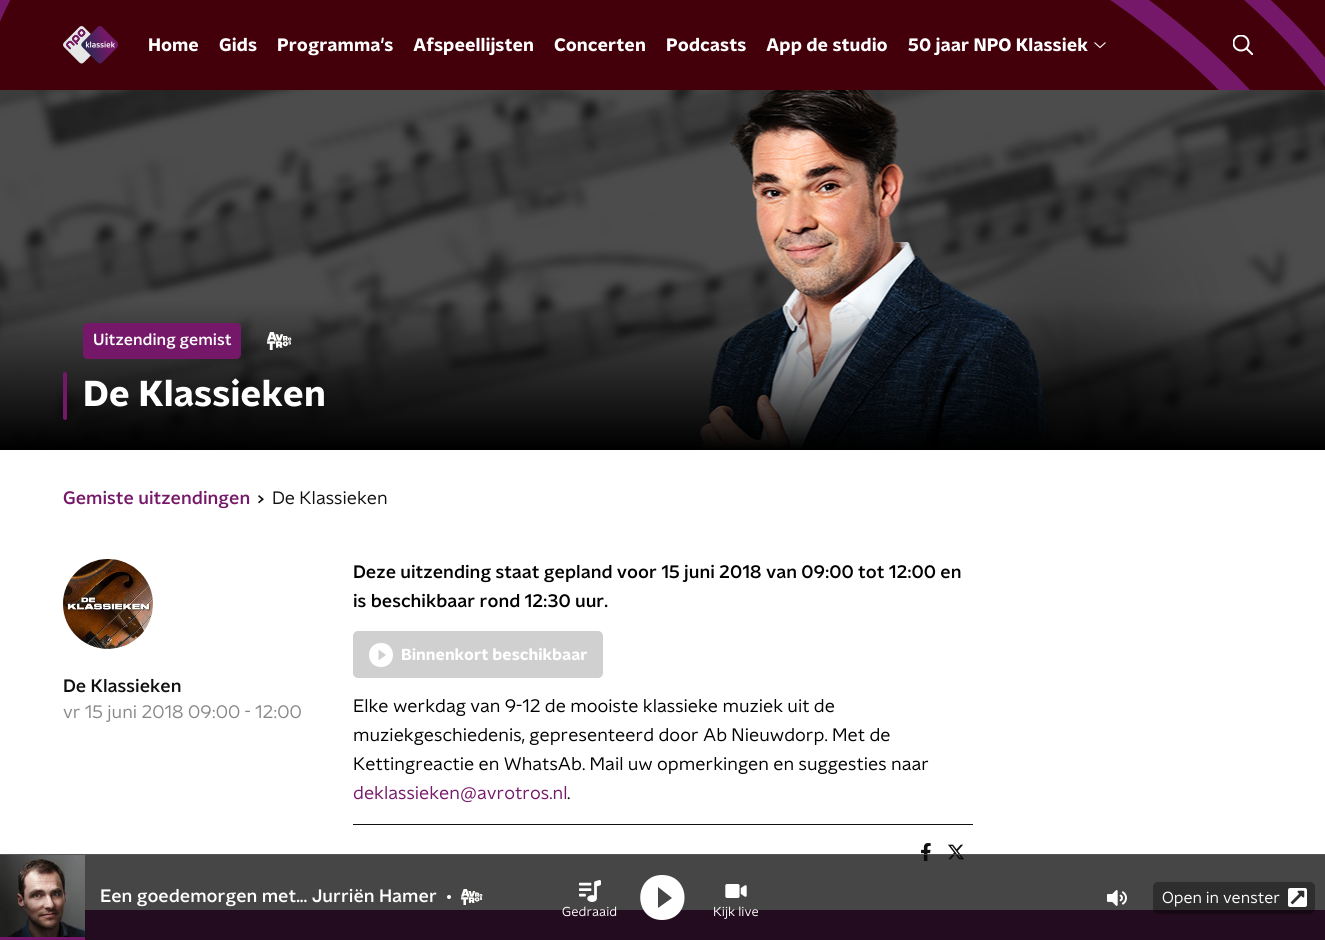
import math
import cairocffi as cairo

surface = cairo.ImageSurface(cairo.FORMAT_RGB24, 1325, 940)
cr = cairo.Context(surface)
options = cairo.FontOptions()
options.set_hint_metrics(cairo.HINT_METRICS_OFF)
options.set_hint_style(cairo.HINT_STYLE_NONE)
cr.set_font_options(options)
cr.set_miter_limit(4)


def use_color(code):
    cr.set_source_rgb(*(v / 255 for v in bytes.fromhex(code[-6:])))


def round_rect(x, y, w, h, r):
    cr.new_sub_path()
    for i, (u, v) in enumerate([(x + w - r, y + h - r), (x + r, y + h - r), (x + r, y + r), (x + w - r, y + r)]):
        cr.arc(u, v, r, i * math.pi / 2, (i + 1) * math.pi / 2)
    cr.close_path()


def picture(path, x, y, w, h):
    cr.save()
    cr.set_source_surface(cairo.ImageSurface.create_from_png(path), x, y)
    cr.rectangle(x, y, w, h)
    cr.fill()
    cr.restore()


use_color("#ffffff")
cr.paint()
use_color("#43000b")
cr.rectangle(0, 0, 1325, 90)
cr.fill()
picture("img1.png", 0, 0, 1325, 90)
picture("img2.png", 63, 26, 55, 38)
cr.select_font_face("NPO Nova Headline", cairo.FONT_SLANT_NORMAL, cairo.FONT_WEIGHT_BOLD)
cr.set_font_size(18)
use_color("#ffffff")
cr.move_to(148, 51)
cr.show_text("Home")
cr.move_to(219, 51)
cr.show_text("Gids")
cr.move_to(277, 51)
cr.show_text("Programma's")
cr.move_to(413, 51)
cr.show_text("Afspeellijsten")
cr.move_to(554, 51)
cr.show_text("Concerten")
cr.move_to(666, 51)
cr.show_text("Podcasts")
cr.move_to(766, 51)
cr.show_text("App de studio")
cr.move_to(908, 51)
cr.show_text("50 jaar NPO Klassiek")
cr.new_path()
cr.move_to(1094.5, 42.5)
cr.line_to(1100, 47.5)
cr.line_to(1105.5, 42.5)
cr.set_line_width(1.1)
cr.stroke()
cr.save()
cr.rectangle(1233, 35, 20, 20)
cr.clip()
cr.arc(1241, 43, 7.5, 0, 2 * math.pi)
cr.set_line_width(2)
cr.stroke()
cr.new_path()
cr.move_to(1246.5, 48.5)
cr.line_to(1252.5, 54.5)
cr.set_line_cap(cairo.LINE_CAP_SQUARE)
cr.stroke()
cr.restore()
picture("img3.png", 0, 90, 1325, 360)
use_color("#761869")
round_rect(83, 323, 158, 36, 5)
cr.fill()
cr.select_font_face("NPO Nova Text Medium")
cr.set_font_size(16)
use_color("#ffffff")
cr.move_to(93, 345)
cr.show_text("Uitzending gemist")
picture("img4.png", 267, 332, 25, 18)
use_color("#761869")
round_rect(63, 372, 4, 48, 2)
cr.fill()
cr.select_font_face("NPO Nova Headline", cairo.FONT_SLANT_NORMAL, cairo.FONT_WEIGHT_BOLD)
cr.set_font_size(36)
use_color("#ffffff")
cr.move_to(83, 406)
cr.show_text("De Klassieken")
cr.select_font_face("NPO Nova Text Medium")
cr.set_font_size(18)
use_color("#761869")
cr.move_to(63, 504)
cr.show_text("Gemiste uitzendingen")
picture("img5.png", 258, 495, 6, 9)
cr.select_font_face("NPO Nova Text")
use_color("#101010")
cr.move_to(272, 504)
cr.show_text("De Klassieken")
picture("img6.png", 63, 559, 90, 90)
cr.select_font_face("NPO Nova Text Medium")
cr.move_to(63, 692)
cr.show_text("De Klassieken")
cr.select_font_face("NPO Nova Text")
use_color("#888888")
cr.move_to(63, 718)
cr.show_text("vr 15 juni 2018 09:00 - 12:00")
cr.select_font_face("NPO Nova Text Medium")
use_color("#000000")
cr.move_to(353, 578)
cr.show_text("Deze uitzending staat gepland voor 15 juni 2018 van 09:00 tot 12:00 en")
cr.move_to(353, 607)
cr.show_text("is beschikbaar rond 12:30 uur.")
use_color("#d0d0d0")
round_rect(353, 631, 250, 47, 5)
cr.fill()
use_color("#ffffff")
cr.new_path()
cr.move_to(381, 643)
cr.curve_to(365, 643, 365, 667, 381, 667)
cr.curve_to(397, 667, 397, 643, 381, 643)
cr.close_path()
cr.move_to(378.5, 660.5)
cr.line_to(378.5, 649.5)
cr.line_to(386, 655)
cr.close_path()
cr.fill()
cr.select_font_face("NPO Nova Headline", cairo.FONT_SLANT_NORMAL, cairo.FONT_WEIGHT_BOLD)
cr.set_font_size(16)
cr.move_to(401, 660)
cr.show_text("Binnenkort beschikbaar")
cr.select_font_face("NPO Nova Text")
cr.set_font_size(18)
use_color("#000000")
cr.move_to(353, 712)
cr.show_text("Elke werkdag van 9-12 de mooiste klassieke muziek uit de")
cr.move_to(353, 741)
cr.show_text("muziekgeschiedenis, gepresenteerd door Ab Nieuwdorp. Met de")
cr.move_to(353, 770)
cr.show_text("Kettingreactie en WhatsAb. Mail uw opmerkingen en suggesties naar")
use_color("#761869")
cr.move_to(353, 799)
cr.show_text("deklassieken@avrotros.nl")
use_color("#000000")
cr.move_to(567, 799)
cr.show_text(".")
use_color("#101010")
cr.rectangle(353, 824, 620, 1)
cr.fill()
picture("img7.png", 921, 843, 10, 18)
picture("img8.png", 948, 844, 16, 16)
use_color("#761869")
cr.rectangle(85, 910, 1240, 30)
cr.fill()
cr.set_source_rgba(0.035, 0.035, 0.035, 0.75)
cr.rectangle(0, 854, 1325, 86)
cr.fill()
cr.set_source_rgba(0.373, 0.373, 0.373, 0.65)
cr.rectangle(0, 854, 1325, 1)
cr.fill()
picture("img9.png", 0, 855, 85, 82)
use_color("#761869")
cr.rectangle(0, 937, 85, 3)
cr.fill()
cr.select_font_face("NPO Nova Text Medium")
use_color("#ffffff")
cr.move_to(100, 902)
cr.show_text("Een goedemorgen met... Jurriën Hamer")
cr.new_path()
cr.arc(449, 897, 2, 0, 2 * math.pi)
cr.fill()
picture("img10.png", 461, 889, 22, 16)
picture("img11.png", 1107, 890, 20, 16)
cr.set_source_rgba(0, 0, 0, 0.35)
round_rect(1153, 882, 162, 32, 5)
cr.fill()
cr.select_font_face("NPO Nova Text")
cr.set_font_size(16)
use_color("#ffffff")
cr.move_to(1162, 903)
cr.show_text("Open in venster")
picture("img12.png", 1288, 888, 19, 19)
picture("img13.png", 579, 880, 22, 22)
cr.set_font_size(13)
cr.move_to(562, 916)
cr.show_text("Gedraaid")
cr.new_path()
cr.move_to(662, 875)
cr.curve_to(633, 875, 633, 920, 662, 920)
cr.curve_to(692, 920, 692, 875, 662, 875)
cr.close_path()
cr.move_to(658, 908)
cr.line_to(658, 887)
cr.line_to(672, 898)
cr.close_path()
cr.fill()
picture("img14.png", 725, 884, 22, 14)
cr.move_to(713, 916)
cr.show_text("Kijk live")
surface.write_to_png("result.png")
